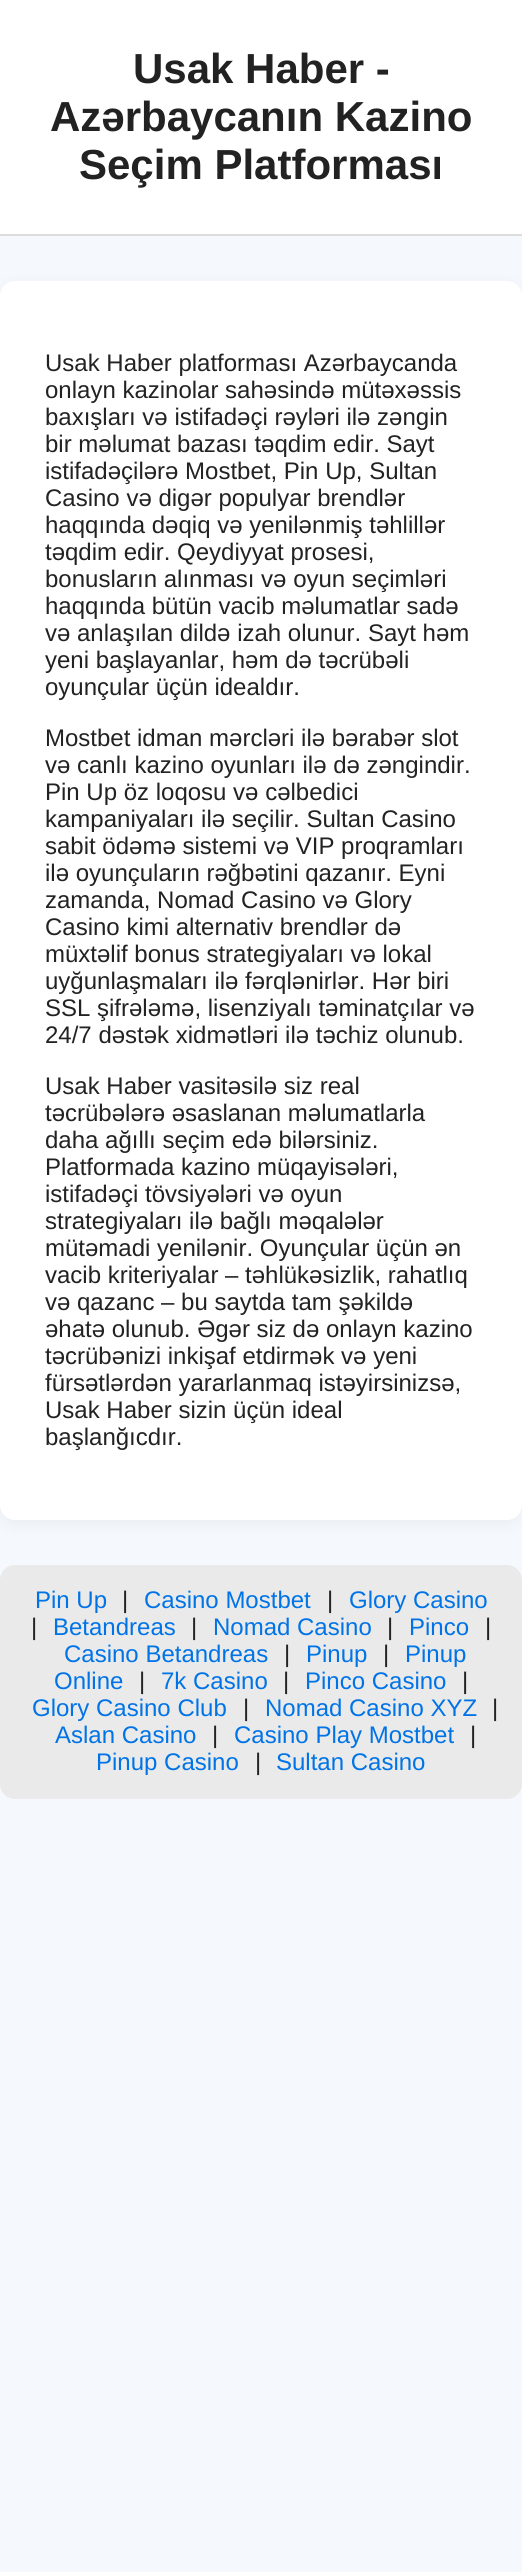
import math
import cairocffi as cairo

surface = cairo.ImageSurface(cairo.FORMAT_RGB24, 522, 2572)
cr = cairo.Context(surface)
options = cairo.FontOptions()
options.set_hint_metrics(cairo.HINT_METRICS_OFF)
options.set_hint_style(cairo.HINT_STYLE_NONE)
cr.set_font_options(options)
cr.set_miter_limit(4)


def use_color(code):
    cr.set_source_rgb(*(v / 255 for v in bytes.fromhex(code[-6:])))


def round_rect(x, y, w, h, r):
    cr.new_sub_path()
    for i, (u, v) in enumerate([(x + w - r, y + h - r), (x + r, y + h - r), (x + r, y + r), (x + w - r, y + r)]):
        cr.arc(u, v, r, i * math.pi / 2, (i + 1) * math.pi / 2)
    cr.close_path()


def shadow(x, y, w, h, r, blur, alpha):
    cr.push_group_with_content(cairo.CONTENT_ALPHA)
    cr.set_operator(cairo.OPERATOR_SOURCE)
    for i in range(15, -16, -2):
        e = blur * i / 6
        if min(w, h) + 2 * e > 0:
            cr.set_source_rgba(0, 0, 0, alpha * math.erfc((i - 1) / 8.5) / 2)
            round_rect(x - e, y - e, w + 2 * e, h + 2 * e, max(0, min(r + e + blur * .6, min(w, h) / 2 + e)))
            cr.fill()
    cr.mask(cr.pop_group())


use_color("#f5f8fc")
cr.paint()
use_color("#ffffff")
cr.rectangle(0, 0, 522, 234)
cr.fill()
use_color("#dddddd")
cr.rectangle(0, 234, 522, 2)
cr.fill()
cr.select_font_face("Liberation Sans", cairo.FONT_SLANT_NORMAL, cairo.FONT_WEIGHT_BOLD)
cr.set_font_size(42)
use_color("#222222")
cr.move_to(133, 83)
cr.show_text("Usak Haber -")
cr.move_to(50, 131)
cr.show_text("Azərbaycanın Kazino")
cr.move_to(79, 179)
cr.show_text("Seçim Platforması")
use_color("#000000")
shadow(0, 285, 522, 1239, 15, 7.5, 0.05)
use_color("#ffffff")
round_rect(0, 281, 522, 1239, 15)
cr.fill()
cr.select_font_face("Liberation Sans")
cr.set_font_size(24)
use_color("#222222")
cr.move_to(45, 371)
cr.show_text("Usak Haber platforması Azərbaycanda")
cr.move_to(45, 398)
cr.show_text("onlayn kazinolar sahəsində mütəxəssis")
cr.move_to(45, 425)
cr.show_text("baxışları və istifadəçi rəyləri ilə zəngin")
cr.move_to(45, 452)
cr.show_text("bir məlumat bazası təqdim edir. Sayt")
cr.move_to(45, 479)
cr.show_text("istifadəçilərə Mostbet, Pin Up, Sultan")
cr.move_to(45, 506)
cr.show_text("Casino və digər populyar brendlər")
cr.move_to(45, 533)
cr.show_text("haqqında dəqiq və yenilənmiş təhlillər")
cr.move_to(45, 560)
cr.show_text("təqdim edir. Qeydiyyat prosesi,")
cr.move_to(45, 587)
cr.show_text("bonusların alınması və oyun seçimləri")
cr.move_to(45, 614)
cr.show_text("haqqında bütün vacib məlumatlar sadə")
cr.move_to(45, 641)
cr.show_text("və anlaşılan dildə izah olunur. Sayt həm")
cr.move_to(45, 668)
cr.show_text("yeni başlayanlar, həm də təcrübəli")
cr.move_to(45, 695)
cr.show_text("oyunçular üçün idealdır.")
cr.move_to(45, 746)
cr.show_text("Mostbet idman mərcləri ilə bərabər slot")
cr.move_to(45, 773)
cr.show_text("və canlı kazino oyunları ilə də zəngindir.")
cr.move_to(45, 800)
cr.show_text("Pin Up öz loqosu və cəlbedici")
cr.move_to(45, 827)
cr.show_text("kampaniyaları ilə seçilir. Sultan Casino")
cr.move_to(45, 854)
cr.show_text("sabit ödəmə sistemi və VIP proqramları")
cr.move_to(45, 881)
cr.show_text("ilə oyunçuların rəğbətini qazanır. Eyni")
cr.move_to(45, 908)
cr.show_text("zamanda, Nomad Casino və Glory")
cr.move_to(45, 935)
cr.show_text("Casino kimi alternativ brendlər də")
cr.move_to(45, 962)
cr.show_text("müxtəlif bonus strategiyaları və lokal")
cr.move_to(45, 989)
cr.show_text("uyğunlaşmaları ilə fərqlənirlər. Hər biri")
cr.move_to(45, 1016)
cr.show_text("SSL şifrələmə, lisenziyalı təminatçılar və")
cr.move_to(45, 1043)
cr.show_text("24/7 dəstək xidmətləri ilə təchiz olunub.")
cr.move_to(45, 1094)
cr.show_text("Usak Haber vasitəsilə siz real")
cr.move_to(45, 1121)
cr.show_text("təcrübələrə əsaslanan məlumatlarla")
cr.move_to(45, 1148)
cr.show_text("daha ağıllı seçim edə bilərsiniz.")
cr.move_to(45, 1175)
cr.show_text("Platformada kazino müqayisələri,")
cr.move_to(45, 1202)
cr.show_text("istifadəçi tövsiyələri və oyun")
cr.move_to(45, 1229)
cr.show_text("strategiyaları ilə bağlı məqalələr")
cr.move_to(45, 1256)
cr.show_text("mütəmadi yenilənir. Oyunçular üçün ən")
cr.move_to(45, 1283)
cr.show_text("vacib kriteriyalar – təhlükəsizlik, rahatlıq")
cr.move_to(45, 1310)
cr.show_text("və qazanc – bu saytda tam şəkildə")
cr.move_to(45, 1337)
cr.show_text("əhatə olunub. Əgər siz də onlayn kazino")
cr.move_to(45, 1364)
cr.show_text("təcrübənizi inkişaf etdirmək və yeni")
cr.move_to(45, 1391)
cr.show_text("fürsətlərdən yararlanmaq istəyirsinizsə,")
cr.move_to(45, 1418)
cr.show_text("Usak Haber sizin üçün ideal")
cr.move_to(45, 1445)
cr.show_text("başlanğıcdır.")
use_color("#eaeaea")
round_rect(0, 1565, 522, 234, 15)
cr.fill()
use_color("#0073e6")
cr.move_to(35, 1608)
cr.show_text("Pin Up")
use_color("#222222")
cr.move_to(122, 1608)
cr.show_text("|")
use_color("#0073e6")
cr.move_to(144, 1608)
cr.show_text("Casino Mostbet")
use_color("#222222")
cr.move_to(327, 1608)
cr.show_text("|")
use_color("#0073e6")
cr.move_to(349, 1608)
cr.show_text("Glory Casino")
use_color("#222222")
cr.move_to(31, 1635)
cr.show_text("|")
use_color("#0073e6")
cr.move_to(53, 1635)
cr.show_text("Betandreas")
use_color("#222222")
cr.move_to(191, 1635)
cr.show_text("|")
use_color("#0073e6")
cr.move_to(213, 1635)
cr.show_text("Nomad Casino")
use_color("#222222")
cr.move_to(387, 1635)
cr.show_text("|")
use_color("#0073e6")
cr.move_to(409, 1635)
cr.show_text("Pinco")
use_color("#222222")
cr.move_to(485, 1635)
cr.show_text("|")
use_color("#0073e6")
cr.move_to(64, 1662)
cr.show_text("Casino Betandreas")
use_color("#222222")
cr.move_to(284, 1662)
cr.show_text("|")
use_color("#0073e6")
cr.move_to(306, 1662)
cr.show_text("Pinup")
use_color("#222222")
cr.move_to(383, 1662)
cr.show_text("|")
use_color("#0073e6")
cr.move_to(405, 1662)
cr.show_text("Pinup")
cr.move_to(54, 1689)
cr.show_text("Online")
use_color("#222222")
cr.move_to(139, 1689)
cr.show_text("|")
use_color("#0073e6")
cr.move_to(161, 1689)
cr.show_text("7k Casino")
use_color("#222222")
cr.move_to(283, 1689)
cr.show_text("|")
use_color("#0073e6")
cr.move_to(305, 1689)
cr.show_text("Pinco Casino")
use_color("#222222")
cr.move_to(462, 1689)
cr.show_text("|")
use_color("#0073e6")
cr.move_to(32, 1716)
cr.show_text("Glory Casino Club")
use_color("#222222")
cr.move_to(243, 1716)
cr.show_text("|")
use_color("#0073e6")
cr.move_to(265, 1716)
cr.show_text("Nomad Casino XYZ")
use_color("#222222")
cr.move_to(492, 1716)
cr.show_text("|")
use_color("#0073e6")
cr.move_to(55, 1743)
cr.show_text("Aslan Casino")
use_color("#222222")
cr.move_to(212, 1743)
cr.show_text("|")
use_color("#0073e6")
cr.move_to(234, 1743)
cr.show_text("Casino Play Mostbet")
use_color("#222222")
cr.move_to(470, 1743)
cr.show_text("|")
use_color("#0073e6")
cr.move_to(96, 1770)
cr.show_text("Pinup Casino")
use_color("#222222")
cr.move_to(255, 1770)
cr.show_text("|")
use_color("#0073e6")
cr.move_to(276, 1770)
cr.show_text("Sultan Casino")
surface.write_to_png("result.png")
